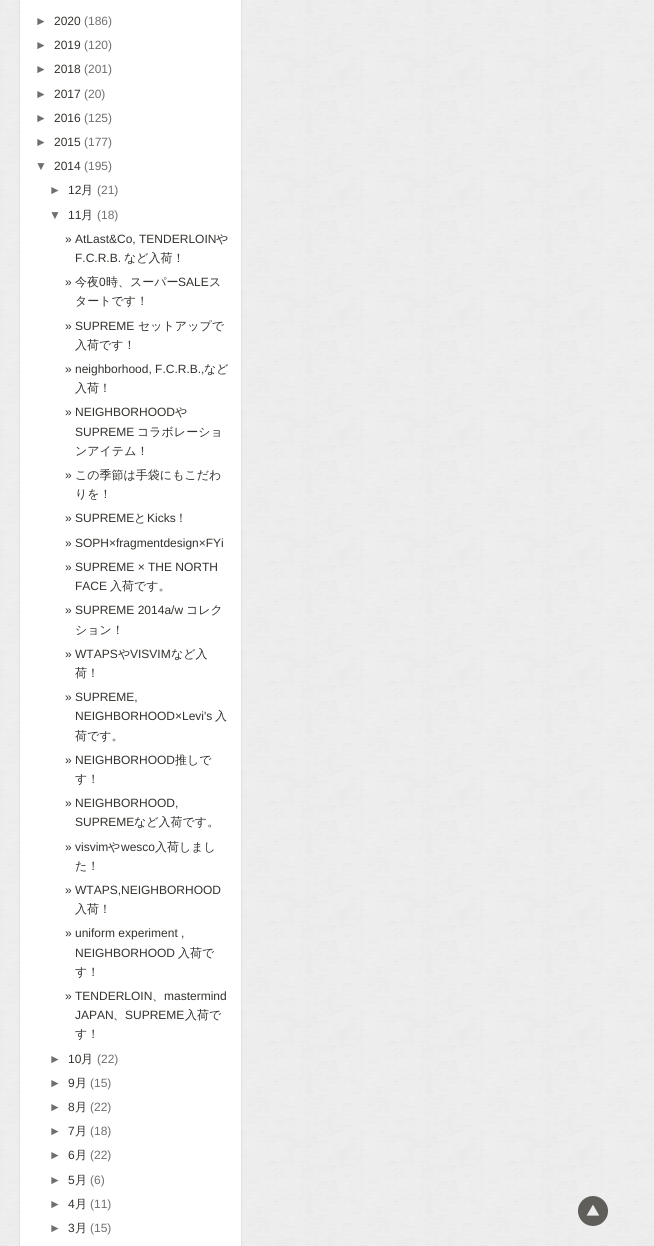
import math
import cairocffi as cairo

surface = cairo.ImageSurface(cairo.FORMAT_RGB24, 654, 1246)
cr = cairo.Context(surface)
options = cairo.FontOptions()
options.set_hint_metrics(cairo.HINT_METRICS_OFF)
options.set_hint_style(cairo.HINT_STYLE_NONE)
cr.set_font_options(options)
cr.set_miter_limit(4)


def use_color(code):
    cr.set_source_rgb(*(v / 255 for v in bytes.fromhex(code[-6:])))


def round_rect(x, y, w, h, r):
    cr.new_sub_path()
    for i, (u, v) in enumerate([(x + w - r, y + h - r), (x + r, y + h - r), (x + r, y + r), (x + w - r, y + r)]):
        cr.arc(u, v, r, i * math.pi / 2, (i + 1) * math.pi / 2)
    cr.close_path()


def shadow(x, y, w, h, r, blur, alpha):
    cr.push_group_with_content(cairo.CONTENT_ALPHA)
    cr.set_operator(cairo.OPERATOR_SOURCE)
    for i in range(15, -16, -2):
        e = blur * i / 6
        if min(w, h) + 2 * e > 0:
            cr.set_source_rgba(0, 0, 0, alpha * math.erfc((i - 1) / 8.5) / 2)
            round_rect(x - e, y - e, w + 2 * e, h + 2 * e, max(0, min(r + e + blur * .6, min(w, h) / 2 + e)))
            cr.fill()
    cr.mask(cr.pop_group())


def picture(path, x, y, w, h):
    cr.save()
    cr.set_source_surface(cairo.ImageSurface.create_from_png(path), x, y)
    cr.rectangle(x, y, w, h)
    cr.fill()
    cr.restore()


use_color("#ffffff")
cr.paint()
picture("img1.png", 0, 0, 654, 1246)
use_color("#020202")
shadow(20, -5, 221, 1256, 3, 0.5, 0.2)
use_color("#ffffff")
cr.rectangle(20, 0, 221, 1246)
cr.fill()
cr.select_font_face("Liberation Sans")
cr.set_font_size(12)
use_color("#6f6f6f")
cr.move_to(35, 25)
cr.show_text("►")
use_color("#33322e")
cr.move_to(54, 25)
cr.show_text("2020")
use_color("#6f6f6f")
cr.move_to(84, 25)
cr.show_text("(186)")
cr.move_to(35, 49)
cr.show_text("►")
use_color("#33322e")
cr.move_to(54, 49)
cr.show_text("2019")
use_color("#6f6f6f")
cr.move_to(84, 49)
cr.show_text("(120)")
cr.move_to(35, 73)
cr.show_text("►")
use_color("#33322e")
cr.move_to(54, 73)
cr.show_text("2018")
use_color("#6f6f6f")
cr.move_to(84, 73)
cr.show_text("(201)")
cr.move_to(35, 98)
cr.show_text("►")
use_color("#33322e")
cr.move_to(54, 98)
cr.show_text("2017")
use_color("#6f6f6f")
cr.move_to(84, 98)
cr.show_text("(20)")
cr.move_to(35, 122)
cr.show_text("►")
use_color("#33322e")
cr.move_to(54, 122)
cr.show_text("2016")
use_color("#6f6f6f")
cr.move_to(84, 122)
cr.show_text("(125)")
cr.move_to(35, 146)
cr.show_text("►")
use_color("#33322e")
cr.move_to(54, 146)
cr.show_text("2015")
use_color("#6f6f6f")
cr.move_to(84, 146)
cr.show_text("(177)")
cr.move_to(35, 170)
cr.show_text("▼")
use_color("#33322e")
cr.move_to(54, 170)
cr.show_text("2014")
use_color("#6f6f6f")
cr.move_to(84, 170)
cr.show_text("(195)")
cr.move_to(49, 194)
cr.show_text("►")
use_color("#33322e")
cr.move_to(68, 194)
cr.show_text("12")
cr.select_font_face("WenQuanYi Zen Hei Medium")
cr.move_to(81, 194)
cr.show_text("月")
cr.select_font_face("Liberation Sans")
use_color("#6f6f6f")
cr.move_to(97, 194)
cr.show_text("(21)")
cr.move_to(49, 219)
cr.show_text("▼")
use_color("#33322e")
cr.move_to(68, 219)
cr.show_text("11")
cr.select_font_face("WenQuanYi Zen Hei Medium")
cr.move_to(81, 219)
cr.show_text("月")
cr.select_font_face("Liberation Sans")
use_color("#6f6f6f")
cr.move_to(97, 219)
cr.show_text("(18)")
use_color("#33322e")
cr.move_to(65, 243)
cr.show_text("» AtLast&Co, TENDERLOIN")
cr.select_font_face("WenQuanYi Zen Hei Medium")
cr.move_to(216, 243)
cr.show_text("や")
cr.select_font_face("Liberation Sans")
cr.move_to(75, 262)
cr.show_text("F.C.R.B.")
cr.select_font_face("WenQuanYi Zen Hei Medium")
cr.move_to(124, 262)
cr.show_text("など入荷！")
cr.select_font_face("Liberation Sans")
cr.move_to(65, 286)
cr.show_text("»")
cr.select_font_face("WenQuanYi Zen Hei Medium")
cr.move_to(75, 286)
cr.show_text("今夜")
cr.select_font_face("Liberation Sans")
cr.move_to(99, 286)
cr.show_text("0")
cr.select_font_face("WenQuanYi Zen Hei Medium")
cr.move_to(106, 286)
cr.show_text("時、スーパー")
cr.select_font_face("Liberation Sans")
cr.move_to(178, 286)
cr.show_text("SALE")
cr.select_font_face("WenQuanYi Zen Hei Medium")
cr.move_to(209, 286)
cr.show_text("ス")
cr.move_to(75, 305)
cr.show_text("タートです！")
cr.select_font_face("Liberation Sans")
cr.move_to(65, 330)
cr.show_text("» SUPREME")
cr.select_font_face("WenQuanYi Zen Hei Medium")
cr.move_to(138, 330)
cr.show_text("セットアップで")
cr.move_to(75, 349)
cr.show_text("入荷です！")
cr.select_font_face("Liberation Sans")
cr.move_to(65, 373)
cr.show_text("» neighborhood, F.C.R.B.,")
cr.select_font_face("WenQuanYi Zen Hei Medium")
cr.move_to(204, 373)
cr.show_text("など")
cr.move_to(75, 392)
cr.show_text("入荷！")
cr.select_font_face("Liberation Sans")
cr.move_to(65, 416)
cr.show_text("» NEIGHBORHOOD")
cr.select_font_face("WenQuanYi Zen Hei Medium")
cr.move_to(175, 416)
cr.show_text("や")
cr.select_font_face("Liberation Sans")
cr.move_to(75, 436)
cr.show_text("SUPREME")
cr.select_font_face("WenQuanYi Zen Hei Medium")
cr.move_to(137, 436)
cr.show_text("コラボレーショ")
cr.move_to(75, 455)
cr.show_text("ンアイテム！")
cr.select_font_face("Liberation Sans")
cr.move_to(65, 479)
cr.show_text("»")
cr.select_font_face("WenQuanYi Zen Hei Medium")
cr.move_to(75, 479)
cr.show_text("この季節は手袋にもこだわ")
cr.move_to(75, 498)
cr.show_text("りを！")
cr.select_font_face("Liberation Sans")
cr.move_to(65, 522)
cr.show_text("» SUPREME")
cr.select_font_face("WenQuanYi Zen Hei Medium")
cr.move_to(134, 522)
cr.show_text("と")
cr.select_font_face("Liberation Sans")
cr.move_to(147, 522)
cr.show_text("Kicks")
cr.select_font_face("WenQuanYi Zen Hei Medium")
cr.move_to(175, 522)
cr.show_text("！")
cr.select_font_face("Liberation Sans")
cr.move_to(65, 547)
cr.show_text("» SOPH×fragmentdesign×FYi")
cr.move_to(65, 571)
cr.show_text("» SUPREME × THE NORTH")
cr.move_to(75, 590)
cr.show_text("FACE")
cr.select_font_face("WenQuanYi Zen Hei Medium")
cr.move_to(110, 590)
cr.show_text("入荷です。")
cr.select_font_face("Liberation Sans")
cr.move_to(65, 614)
cr.show_text("» SUPREME 2014a/w")
cr.select_font_face("WenQuanYi Zen Hei Medium")
cr.move_to(186, 614)
cr.show_text("コレク")
cr.move_to(75, 634)
cr.show_text("ション！")
cr.select_font_face("Liberation Sans")
cr.move_to(65, 658)
cr.show_text("» WTAPS")
cr.select_font_face("WenQuanYi Zen Hei Medium")
cr.move_to(118, 658)
cr.show_text("や")
cr.select_font_face("Liberation Sans")
cr.move_to(130, 658)
cr.show_text("VISVIM")
cr.select_font_face("WenQuanYi Zen Hei Medium")
cr.move_to(171, 658)
cr.show_text("など入")
cr.move_to(75, 677)
cr.show_text("荷！")
cr.select_font_face("Liberation Sans")
cr.move_to(65, 701)
cr.show_text("» SUPREME,")
cr.move_to(75, 720)
cr.show_text("NEIGHBORHOOD×Levi's")
cr.select_font_face("WenQuanYi Zen Hei Medium")
cr.move_to(215, 720)
cr.show_text("入")
cr.move_to(75, 740)
cr.show_text("荷です。")
cr.select_font_face("Liberation Sans")
cr.move_to(65, 764)
cr.show_text("» NEIGHBORHOOD")
cr.select_font_face("WenQuanYi Zen Hei Medium")
cr.move_to(175, 764)
cr.show_text("推しで")
cr.move_to(75, 783)
cr.show_text("す！")
cr.select_font_face("Liberation Sans")
cr.move_to(65, 807)
cr.show_text("» NEIGHBORHOOD,")
cr.move_to(75, 826)
cr.show_text("SUPREME")
cr.select_font_face("WenQuanYi Zen Hei Medium")
cr.move_to(134, 826)
cr.show_text("など入荷です。")
cr.select_font_face("Liberation Sans")
cr.move_to(65, 851)
cr.show_text("» visvim")
cr.select_font_face("WenQuanYi Zen Hei Medium")
cr.move_to(108, 851)
cr.show_text("や")
cr.select_font_face("Liberation Sans")
cr.move_to(121, 851)
cr.show_text("wesco")
cr.select_font_face("WenQuanYi Zen Hei Medium")
cr.move_to(155, 851)
cr.show_text("入荷しまし")
cr.move_to(75, 870)
cr.show_text("た！")
cr.select_font_face("Liberation Sans")
cr.move_to(65, 894)
cr.show_text("» WTAPS,NEIGHBORHOOD")
cr.select_font_face("WenQuanYi Zen Hei Medium")
cr.move_to(75, 913)
cr.show_text("入荷！")
cr.select_font_face("Liberation Sans")
cr.move_to(65, 937)
cr.show_text("» uniform experiment ,")
cr.move_to(75, 957)
cr.show_text("NEIGHBORHOOD")
cr.select_font_face("WenQuanYi Zen Hei Medium")
cr.move_to(178, 957)
cr.show_text("入荷で")
cr.move_to(75, 976)
cr.show_text("す！")
cr.select_font_face("Liberation Sans")
cr.move_to(65, 1000)
cr.show_text("» TENDERLOIN")
cr.select_font_face("WenQuanYi Zen Hei Medium")
cr.move_to(152, 1000)
cr.show_text("、")
cr.select_font_face("Liberation Sans")
cr.move_to(164, 1000)
cr.show_text("mastermind")
cr.move_to(75, 1019)
cr.show_text("JAPAN")
cr.select_font_face("WenQuanYi Zen Hei Medium")
cr.move_to(113, 1019)
cr.show_text("、")
cr.select_font_face("Liberation Sans")
cr.move_to(125, 1019)
cr.show_text("SUPREME")
cr.select_font_face("WenQuanYi Zen Hei Medium")
cr.move_to(185, 1019)
cr.show_text("入荷で")
cr.move_to(75, 1038)
cr.show_text("す！")
cr.select_font_face("Liberation Sans")
use_color("#6f6f6f")
cr.move_to(49, 1063)
cr.show_text("►")
use_color("#33322e")
cr.move_to(68, 1063)
cr.show_text("10")
cr.select_font_face("WenQuanYi Zen Hei Medium")
cr.move_to(81, 1063)
cr.show_text("月")
cr.select_font_face("Liberation Sans")
use_color("#6f6f6f")
cr.move_to(97, 1063)
cr.show_text("(22)")
cr.move_to(49, 1087)
cr.show_text("►")
use_color("#33322e")
cr.move_to(68, 1087)
cr.show_text("9")
cr.select_font_face("WenQuanYi Zen Hei Medium")
cr.move_to(75, 1087)
cr.show_text("月")
cr.select_font_face("Liberation Sans")
use_color("#6f6f6f")
cr.move_to(90, 1087)
cr.show_text("(15)")
cr.move_to(49, 1111)
cr.show_text("►")
use_color("#33322e")
cr.move_to(68, 1111)
cr.show_text("8")
cr.select_font_face("WenQuanYi Zen Hei Medium")
cr.move_to(75, 1111)
cr.show_text("月")
cr.select_font_face("Liberation Sans")
use_color("#6f6f6f")
cr.move_to(90, 1111)
cr.show_text("(22)")
cr.move_to(49, 1135)
cr.show_text("►")
use_color("#33322e")
cr.move_to(68, 1135)
cr.show_text("7")
cr.select_font_face("WenQuanYi Zen Hei Medium")
cr.move_to(75, 1135)
cr.show_text("月")
cr.select_font_face("Liberation Sans")
use_color("#6f6f6f")
cr.move_to(90, 1135)
cr.show_text("(18)")
cr.move_to(49, 1159)
cr.show_text("►")
use_color("#33322e")
cr.move_to(68, 1159)
cr.show_text("6")
cr.select_font_face("WenQuanYi Zen Hei Medium")
cr.move_to(75, 1159)
cr.show_text("月")
cr.select_font_face("Liberation Sans")
use_color("#6f6f6f")
cr.move_to(90, 1159)
cr.show_text("(22)")
cr.move_to(49, 1184)
cr.show_text("►")
use_color("#33322e")
cr.move_to(68, 1184)
cr.show_text("5")
cr.select_font_face("WenQuanYi Zen Hei Medium")
cr.move_to(75, 1184)
cr.show_text("月")
cr.select_font_face("Liberation Sans")
use_color("#6f6f6f")
cr.move_to(90, 1184)
cr.show_text("(6)")
cr.move_to(49, 1208)
cr.show_text("►")
use_color("#33322e")
cr.move_to(68, 1208)
cr.show_text("4")
cr.select_font_face("WenQuanYi Zen Hei Medium")
cr.move_to(75, 1208)
cr.show_text("月")
cr.select_font_face("Liberation Sans")
use_color("#6f6f6f")
cr.move_to(90, 1208)
cr.show_text("(11)")
cr.move_to(49, 1232)
cr.show_text("►")
use_color("#33322e")
cr.move_to(68, 1232)
cr.show_text("3")
cr.select_font_face("WenQuanYi Zen Hei Medium")
cr.move_to(75, 1232)
cr.show_text("月")
cr.select_font_face("Liberation Sans")
use_color("#6f6f6f")
cr.move_to(90, 1232)
cr.show_text("(15)")
picture("img2.png", 578, 1196, 30, 30)
surface.write_to_png("result.png")
